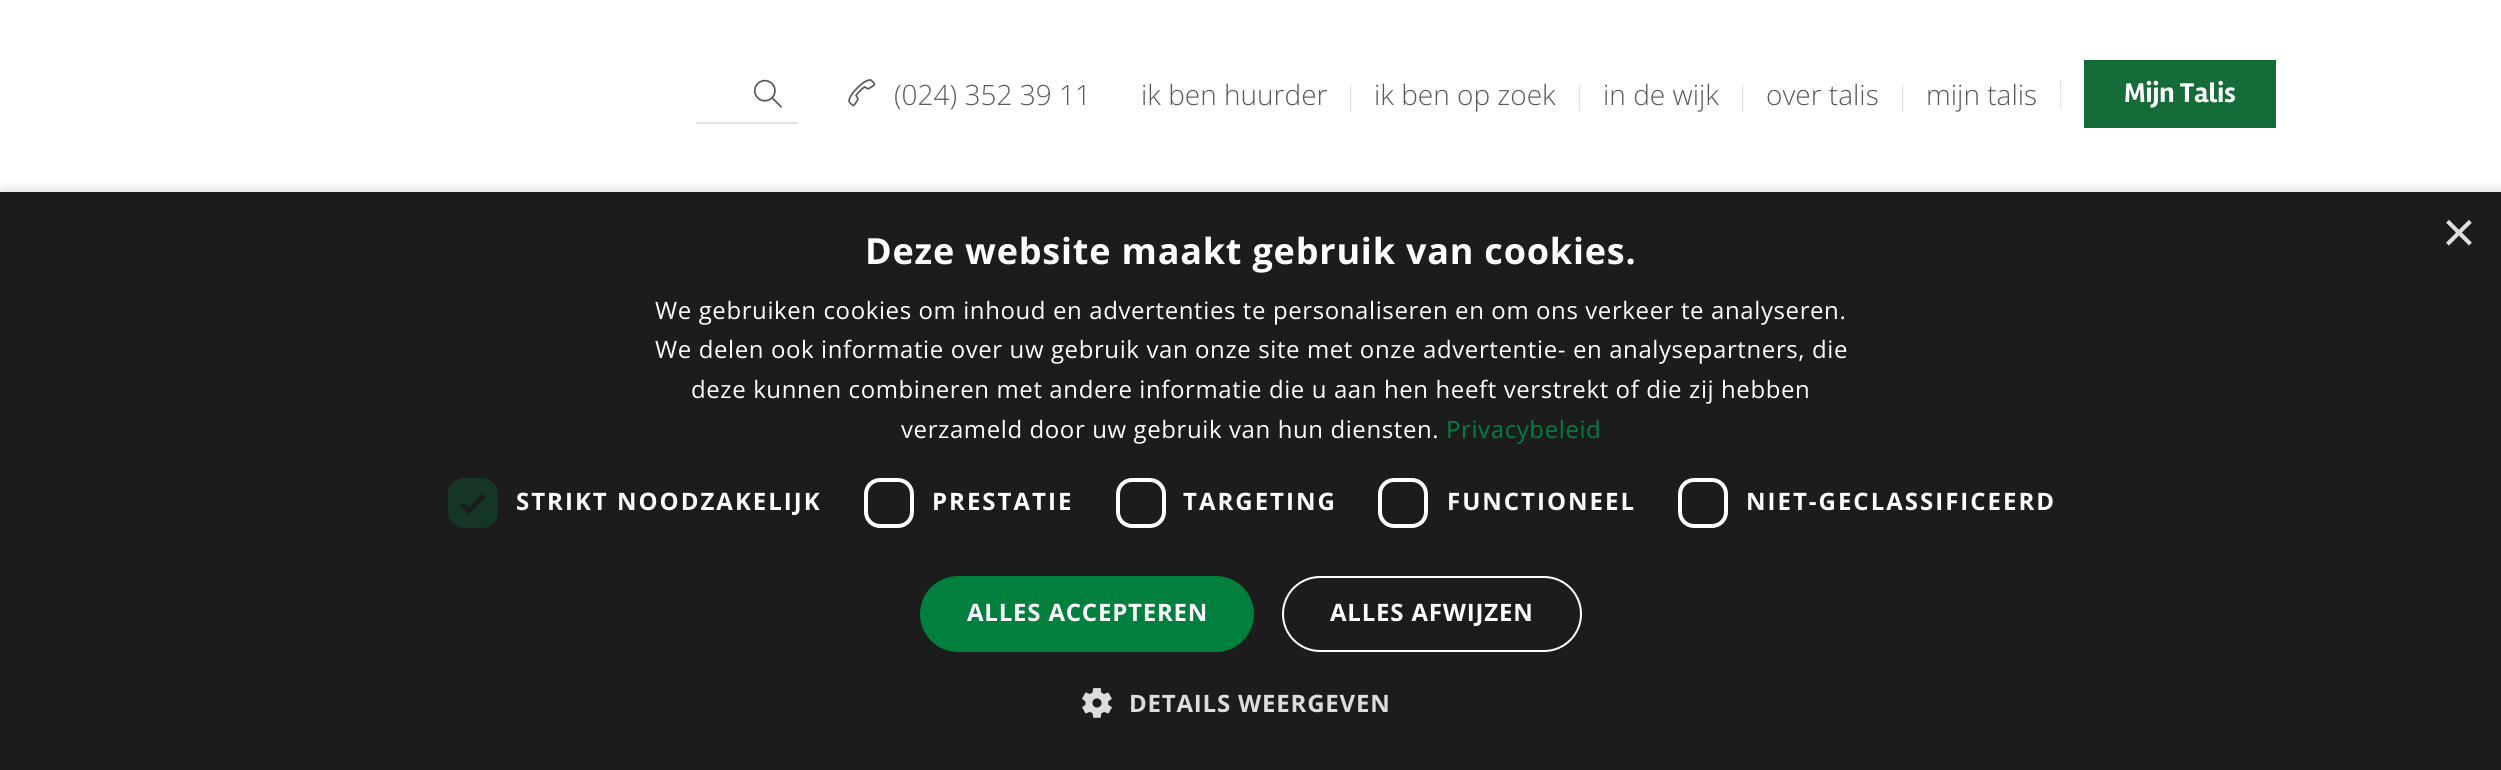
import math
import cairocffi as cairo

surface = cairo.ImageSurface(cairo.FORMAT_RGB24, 2501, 770)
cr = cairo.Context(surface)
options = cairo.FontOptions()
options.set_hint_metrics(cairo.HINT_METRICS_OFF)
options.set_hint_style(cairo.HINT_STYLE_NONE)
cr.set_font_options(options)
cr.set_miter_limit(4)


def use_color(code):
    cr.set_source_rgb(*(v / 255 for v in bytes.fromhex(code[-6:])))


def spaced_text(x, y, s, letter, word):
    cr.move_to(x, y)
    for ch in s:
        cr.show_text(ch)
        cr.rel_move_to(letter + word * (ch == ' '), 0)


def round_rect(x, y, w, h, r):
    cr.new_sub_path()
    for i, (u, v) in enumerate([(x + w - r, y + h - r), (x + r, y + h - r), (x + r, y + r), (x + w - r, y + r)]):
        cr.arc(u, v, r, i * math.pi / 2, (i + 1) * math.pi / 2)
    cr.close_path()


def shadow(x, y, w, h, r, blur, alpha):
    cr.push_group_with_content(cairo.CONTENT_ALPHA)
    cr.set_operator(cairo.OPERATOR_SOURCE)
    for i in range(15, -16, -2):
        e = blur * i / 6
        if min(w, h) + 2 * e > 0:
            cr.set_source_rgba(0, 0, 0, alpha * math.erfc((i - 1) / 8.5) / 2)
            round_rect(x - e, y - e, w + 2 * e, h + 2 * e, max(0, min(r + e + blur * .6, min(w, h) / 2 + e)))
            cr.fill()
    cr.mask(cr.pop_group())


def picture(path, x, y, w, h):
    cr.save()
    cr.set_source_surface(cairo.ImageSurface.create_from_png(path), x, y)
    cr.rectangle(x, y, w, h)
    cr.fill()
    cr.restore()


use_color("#ffffff")
cr.paint()
picture("img1.png", 753, 79, 29, 29)
use_color("#e3e3e3")
cr.rectangle(696, 122, 102, 2)
cr.fill()
picture("img2.png", 848, 79, 28, 28)
cr.select_font_face("Open Sans Light")
cr.set_font_size(28)
use_color("#5a5a5a")
cr.move_to(894, 105)
cr.show_text("(024) 352 39 11")
cr.move_to(1141, 105)
cr.show_text("ik ben huurder")
use_color("#e3e3e3")
cr.move_to(1343, 105)
cr.show_text("|")
use_color("#5a5a5a")
cr.move_to(1374, 105)
cr.show_text("ik ben op zoek")
use_color("#e3e3e3")
cr.move_to(1572, 105)
cr.show_text("|")
use_color("#5a5a5a")
cr.move_to(1603, 105)
cr.show_text("in de wijk")
use_color("#e3e3e3")
cr.move_to(1735, 105)
cr.show_text("|")
use_color("#5a5a5a")
cr.move_to(1766, 105)
cr.show_text("over talis")
use_color("#e3e3e3")
cr.move_to(1895, 105)
cr.show_text("|")
use_color("#5a5a5a")
cr.move_to(1926, 105)
cr.show_text("mijn talis")
use_color("#e3e3e3")
cr.move_to(2053, 102)
cr.show_text("|")
use_color("#146c38")
cr.rectangle(2084, 60, 192, 68)
cr.fill()
cr.select_font_face("Rambla", cairo.FONT_SLANT_NORMAL, cairo.FONT_WEIGHT_BOLD)
use_color("#ffffff")
cr.move_to(2124, 102)
cr.show_text("Mijn Talis")
use_color("#000000")
shadow(2, 196, 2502, 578, 0, 8, 0.35)
use_color("#1c1c1c")
cr.rectangle(0, 192, 2501, 578)
cr.fill()
cr.select_font_face("Liberation Sans")
cr.set_font_size(58)
use_color("#dddddd")
cr.move_to(2442, 252)
cr.show_text("×")
cr.select_font_face("Open Sans", cairo.FONT_SLANT_NORMAL, cairo.FONT_WEIGHT_BOLD)
cr.set_font_size(36)
use_color("#ffffff")
spaced_text(865, 264, "Deze website maakt gebruik van cookies.", 0.8, 0)
cr.select_font_face("Open Sans")
cr.set_font_size(24)
spaced_text(655, 319, "We gebruiken cookies om inhoud en advertenties te personaliseren en om ons verkeer te analyseren.", 0.6, 0)
spaced_text(655, 358, "We delen ook informatie over uw gebruik van onze site met onze advertentie- en analysepartners, die", 0.6, 0)
spaced_text(691, 398, "deze kunnen combineren met andere informatie die u aan hen heeft verstrekt of die zij hebben", 0.6, 0)
spaced_text(901, 438, "verzameld door uw gebruik van hun diensten.", 0.6, 0)
use_color("#007f3e")
spaced_text(1446, 438, "Privacybeleid", 0.6, 0)
use_color("#153625")
round_rect(448, 478, 50, 50, 16)
cr.fill()
cr.new_path()
cr.move_to(462, 504)
cr.line_to(468.5, 510.5)
cr.line_to(484, 495.5)
use_color("#1c1c1c")
cr.set_line_width(5.2)
cr.stroke()
cr.select_font_face("Open Sans", cairo.FONT_SLANT_NORMAL, cairo.FONT_WEIGHT_BOLD)
use_color("#ffffff")
spaced_text(516, 510, "STRIKT NOODZAKELIJK", 2, 0)
round_rect(866, 480, 46, 46, 14)
cr.set_line_width(4)
cr.stroke()
spaced_text(932, 510, "PRESTATIE", 2, 0)
round_rect(1118, 480, 46, 46, 14)
cr.stroke()
spaced_text(1183, 510, "TARGETING", 2, 0)
round_rect(1380, 480, 46, 46, 14)
cr.stroke()
spaced_text(1447, 510, "FUNCTIONEEL", 2, 0)
round_rect(1680, 480, 46, 46, 14)
cr.stroke()
spaced_text(1746, 510, "NIET-GECLASSIFICEERD", 2, 0)
use_color("#007f3e")
round_rect(920, 576, 334, 76, 38)
cr.fill()
use_color("#ffffff")
spaced_text(967, 621, "ALLES ACCEPTEREN", 0.8, 0)
round_rect(1283, 577, 298, 74, 37)
cr.set_line_width(2)
cr.stroke()
spaced_text(1330, 621, "ALLES AFWIJZEN", 0.8, 0)
picture("img3.png", 1082, 688, 30, 30)
use_color("#dddddd")
spaced_text(1129, 712, "DETAILS WEERGEVEN", 0.8, 0)
surface.write_to_png("result.png")
